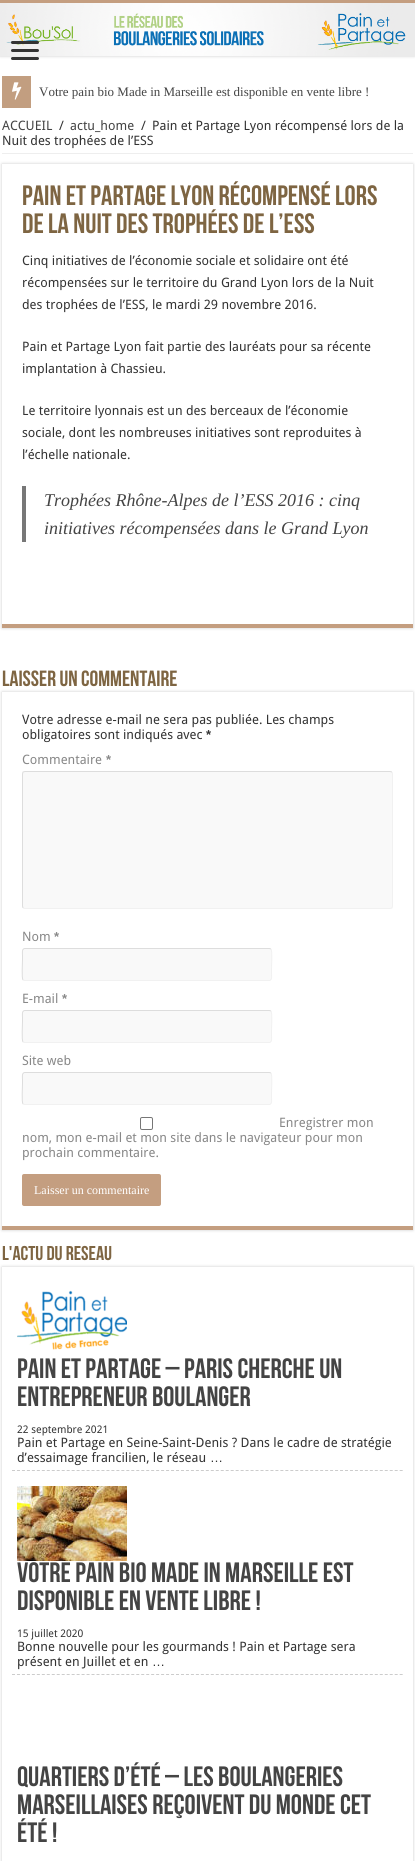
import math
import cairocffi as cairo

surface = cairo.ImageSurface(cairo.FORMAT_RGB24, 415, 1861)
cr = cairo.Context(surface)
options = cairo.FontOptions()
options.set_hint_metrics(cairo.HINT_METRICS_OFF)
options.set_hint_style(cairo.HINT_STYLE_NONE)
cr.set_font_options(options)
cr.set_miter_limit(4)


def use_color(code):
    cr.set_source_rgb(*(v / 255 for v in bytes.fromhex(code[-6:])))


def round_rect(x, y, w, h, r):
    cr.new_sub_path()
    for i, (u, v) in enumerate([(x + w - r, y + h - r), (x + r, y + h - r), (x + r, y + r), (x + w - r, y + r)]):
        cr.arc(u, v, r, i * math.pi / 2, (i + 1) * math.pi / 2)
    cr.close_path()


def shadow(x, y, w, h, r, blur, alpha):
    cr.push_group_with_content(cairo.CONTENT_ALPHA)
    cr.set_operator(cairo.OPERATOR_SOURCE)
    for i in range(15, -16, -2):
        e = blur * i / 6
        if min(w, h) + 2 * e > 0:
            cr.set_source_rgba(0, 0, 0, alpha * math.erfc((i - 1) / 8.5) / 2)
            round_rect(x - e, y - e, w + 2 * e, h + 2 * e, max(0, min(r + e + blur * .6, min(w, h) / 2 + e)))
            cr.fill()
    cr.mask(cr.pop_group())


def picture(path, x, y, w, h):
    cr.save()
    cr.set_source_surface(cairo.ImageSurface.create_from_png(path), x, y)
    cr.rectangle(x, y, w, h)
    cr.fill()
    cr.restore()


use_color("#ffffff")
cr.paint()
use_color("#cacaca")
shadow(0, 0, 415, 56, 0, 1.5, 1)
use_color("#c49e80")
cr.rectangle(0, 0, 415, 3)
cr.fill()
picture("img1.png", 0, 3, 415, 53)
use_color("#333333")
round_rect(11, 41, 28, 3, 1.5)
cr.fill()
round_rect(11, 49, 28, 3, 1.5)
cr.fill()
round_rect(11, 57, 28, 3, 1.5)
cr.fill()
use_color("#c29e80")
cr.rectangle(2, 76, 29, 32)
cr.fill()
picture("img2.png", 12, 82, 10, 18)
cr.select_font_face("Liberation Serif")
cr.set_font_size(13)
use_color("#444444")
cr.move_to(39, 96)
cr.show_text("Votre pain bio Made in Marseille est disponible en vente libre !")
use_color("#eeeeee")
cr.rectangle(2, 153, 411, 1)
cr.fill()
cr.select_font_face("Droid Sans")
use_color("#444444")
cr.move_to(2, 130)
cr.show_text("ACCUEIL")
use_color("#333333")
cr.move_to(59, 130)
cr.show_text("/")
use_color("#444444")
cr.move_to(70, 130)
cr.show_text("actu_home")
use_color("#333333")
cr.move_to(141, 130)
cr.show_text("/")
cr.move_to(152, 130)
cr.show_text("Pain et Partage Lyon récompensé lors de la")
cr.move_to(2, 145)
cr.show_text("Nuit des trophées de l’ESS")
cr.save()
cr.set_fill_rule(cairo.FILL_RULE_EVEN_ODD)
cr.new_path()
cr.move_to(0, 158)
cr.line_to(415, 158)
cr.line_to(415, 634)
cr.line_to(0, 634)
cr.close_path()
cr.move_to(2, 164)
cr.line_to(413, 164)
cr.line_to(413, 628)
cr.line_to(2, 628)
cr.close_path()
cr.clip()
use_color("#cacaca")
shadow(2, 164, 411, 464, 0, 1.5, 1)
cr.restore()
use_color("#c49e80")
cr.rectangle(2, 624, 411, 4)
cr.fill()
cr.select_font_face("Bebas Neue", cairo.FONT_SLANT_NORMAL, cairo.FONT_WEIGHT_BOLD)
cr.set_font_size(28)
use_color("#7e6542")
cr.move_to(22, 205)
cr.show_text("Pain et Partage Lyon récompensé lors")
cr.move_to(22, 233)
cr.show_text("de la Nuit des trophées de l’ESS")
cr.select_font_face("Droid Sans")
cr.set_font_size(13)
use_color("#333333")
cr.move_to(22, 265)
cr.show_text("Cinq initiatives de l’économie sociale et solidaire ont été")
cr.move_to(22, 287)
cr.show_text("récompensées sur le territoire du Grand Lyon lors de la Nuit")
cr.move_to(22, 309)
cr.show_text("des trophées de l’ESS, le mardi 29 novembre 2016.")
cr.move_to(22, 351)
cr.show_text("Pain et Partage Lyon fait partie des lauréats pour sa récente")
cr.move_to(22, 373)
cr.show_text("implantation à Chassieu.")
cr.move_to(22, 415)
cr.show_text("Le territoire lyonnais est un des berceaux de l’économie")
cr.move_to(22, 437)
cr.show_text("sociale, dont les nombreuses initiatives sont reproduites à")
cr.move_to(22, 459)
cr.show_text("l’échelle nationale.")
use_color("#777777")
cr.rectangle(22, 486, 4, 56)
cr.fill()
cr.select_font_face("Liberation Serif", cairo.FONT_SLANT_ITALIC)
cr.set_font_size(18)
use_color("#444444")
cr.move_to(44, 506)
cr.show_text("Trophées Rhône-Alpes de l’ESS 2016 : cinq")
cr.move_to(44, 534)
cr.show_text("initiatives récompensées dans le Grand Lyon")
cr.select_font_face("Bebas Neue", cairo.FONT_SLANT_NORMAL, cairo.FONT_WEIGHT_BOLD)
cr.set_font_size(22)
use_color("#7e6542")
cr.move_to(2, 686)
cr.show_text("Laisser un commentaire")
cr.save()
cr.set_fill_rule(cairo.FILL_RULE_EVEN_ODD)
cr.new_path()
cr.move_to(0, 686)
cr.line_to(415, 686)
cr.line_to(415, 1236)
cr.line_to(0, 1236)
cr.close_path()
cr.move_to(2, 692)
cr.line_to(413, 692)
cr.line_to(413, 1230)
cr.line_to(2, 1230)
cr.close_path()
cr.clip()
use_color("#cacaca")
shadow(2, 692, 411, 538, 0, 1.5, 1)
cr.restore()
use_color("#c49e80")
cr.rectangle(2, 1226, 411, 4)
cr.fill()
cr.select_font_face("Droid Sans")
cr.set_font_size(13)
use_color("#333333")
cr.move_to(22, 724)
cr.show_text("Votre adresse e-mail ne sera pas publiée. Les champs")
cr.move_to(22, 739)
cr.show_text("obligatoires sont indiqués avec")
cr.select_font_face("Liberation Sans", cairo.FONT_SLANT_NORMAL, cairo.FONT_WEIGHT_BOLD)
cr.move_to(206, 739)
cr.show_text("*")
cr.select_font_face("Droid Sans")
use_color("#888888")
cr.move_to(22, 764)
cr.show_text("Commentaire")
cr.select_font_face("Liberation Sans", cairo.FONT_SLANT_NORMAL, cairo.FONT_WEIGHT_BOLD)
cr.move_to(106, 764)
cr.show_text("*")
use_color("#f9f9f9")
round_rect(22, 771, 371, 138, 3)
cr.fill()
cr.new_path()
cr.move_to(392, 772)
cr.line_to(392.5, 774)
cr.line_to(392.5, 906)
cr.line_to(392, 908)
cr.line_to(390, 908.5)
cr.line_to(25, 908.5)
cr.line_to(23, 908)
use_color("#f1f1f1")
cr.set_line_width(1)
cr.stroke()
cr.new_path()
cr.move_to(23, 908)
cr.line_to(22.5, 906)
cr.line_to(22.5, 774)
cr.line_to(23, 772)
cr.line_to(25, 771.5)
cr.line_to(390, 771.5)
cr.line_to(392, 772)
use_color("#dddddd")
cr.stroke()
cr.select_font_face("Droid Sans")
use_color("#888888")
cr.move_to(22, 941)
cr.show_text("Nom")
cr.select_font_face("Liberation Sans", cairo.FONT_SLANT_NORMAL, cairo.FONT_WEIGHT_BOLD)
cr.move_to(54, 941)
cr.show_text("*")
use_color("#f9f9f9")
round_rect(22, 948, 250, 33, 3)
cr.fill()
cr.new_path()
cr.move_to(271, 949)
cr.curve_to(272.5, 951, 271.5, 966, 271.5, 969)
cr.line_to(271.5, 973.5)
cr.curve_to(271.5, 975.5, 272.5, 980.5, 269, 980.5)
cr.line_to(24.5, 980.5)
cr.line_to(23, 980)
use_color("#f1f1f1")
cr.stroke()
cr.new_path()
cr.move_to(23, 980)
cr.curve_to(21.5, 978, 22.5, 963, 22.5, 960)
cr.line_to(22.5, 955.5)
cr.curve_to(22.5, 953.5, 21.5, 948.5, 25, 948.5)
cr.line_to(269.5, 948.5)
cr.line_to(271, 949)
use_color("#dddddd")
cr.stroke()
cr.select_font_face("Droid Sans")
use_color("#888888")
cr.move_to(22, 1003)
cr.show_text("E-mail")
cr.select_font_face("Liberation Sans", cairo.FONT_SLANT_NORMAL, cairo.FONT_WEIGHT_BOLD)
cr.move_to(62, 1003)
cr.show_text("*")
use_color("#f9f9f9")
round_rect(22, 1010, 250, 33, 3)
cr.fill()
cr.new_path()
cr.move_to(271, 1011)
cr.curve_to(272.5, 1013, 271.5, 1028, 271.5, 1031)
cr.line_to(271.5, 1035.5)
cr.curve_to(271.5, 1037.5, 272.5, 1042.5, 269, 1042.5)
cr.line_to(24.5, 1042.5)
cr.line_to(23, 1042)
use_color("#f1f1f1")
cr.stroke()
cr.new_path()
cr.move_to(23, 1042)
cr.curve_to(21.5, 1040, 22.5, 1025, 22.5, 1022)
cr.line_to(22.5, 1017.5)
cr.curve_to(22.5, 1015.5, 21.5, 1010.5, 25, 1010.5)
cr.line_to(269.5, 1010.5)
cr.line_to(271, 1011)
use_color("#dddddd")
cr.stroke()
cr.select_font_face("Droid Sans")
use_color("#888888")
cr.move_to(22, 1065)
cr.show_text("Site web")
use_color("#f9f9f9")
round_rect(22, 1072, 250, 33, 3)
cr.fill()
cr.new_path()
cr.move_to(271, 1073)
cr.curve_to(272.5, 1075, 271.5, 1090, 271.5, 1093)
cr.line_to(271.5, 1097.5)
cr.curve_to(271.5, 1099.5, 272.5, 1104.5, 269, 1104.5)
cr.line_to(24.5, 1104.5)
cr.line_to(23, 1104)
use_color("#f1f1f1")
cr.stroke()
cr.new_path()
cr.move_to(23, 1104)
cr.curve_to(21.5, 1102, 22.5, 1087, 22.5, 1084)
cr.line_to(22.5, 1079.5)
cr.curve_to(22.5, 1077.5, 21.5, 1072.5, 25, 1072.5)
cr.line_to(269.5, 1072.5)
cr.line_to(271, 1073)
use_color("#dddddd")
cr.stroke()
use_color("#888888")
cr.move_to(279, 1127)
cr.show_text("Enregistrer mon")
cr.move_to(22, 1142)
cr.show_text("nom, mon e-mail et mon site dans le navigateur pour mon")
cr.move_to(22, 1157)
cr.show_text("prochain commentaire.")
round_rect(140.5, 1117.5, 12, 12, 1.5)
use_color("#767676")
cr.stroke()
use_color("#c49e80")
round_rect(22, 1174, 139, 32, 2)
cr.fill()
cr.select_font_face("Liberation Serif")
cr.set_font_size(12)
use_color("#ffffff")
cr.move_to(34, 1194)
cr.show_text("Laisser un commentaire")
cr.select_font_face("Bebas Neue", cairo.FONT_SLANT_NORMAL, cairo.FONT_WEIGHT_BOLD)
cr.set_font_size(20)
use_color("#7e6542")
cr.move_to(2, 1260)
cr.show_text("L'ACTU DU RESEAU")
cr.save()
cr.set_fill_rule(cairo.FILL_RULE_EVEN_ODD)
cr.new_path()
cr.move_to(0, 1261)
cr.line_to(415, 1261)
cr.line_to(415, 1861)
cr.line_to(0, 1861)
cr.close_path()
cr.move_to(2, 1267)
cr.line_to(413, 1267)
cr.line_to(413, 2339)
cr.line_to(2, 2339)
cr.close_path()
cr.clip()
use_color("#cacaca")
shadow(2, 1267, 411, 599, 0, 1.5, 1)
cr.restore()
cr.new_path()
cr.move_to(12, 1470.5)
cr.line_to(403, 1470.5)
use_color("#cccccc")
cr.set_dash([3, 1.97])
cr.stroke()
picture("img3.png", 17, 1290, 110, 60)
cr.set_font_size(28)
use_color("#444444")
cr.move_to(17, 1378)
cr.show_text("Pain et Partage – Paris cherche un")
cr.move_to(17, 1406)
cr.show_text("entrepreneur boulanger")
cr.select_font_face("Droid Sans")
cr.set_font_size(10.5)
use_color("#333333")
cr.move_to(17, 1433)
cr.show_text("22 septembre 2021")
cr.set_font_size(13)
cr.move_to(17, 1447)
cr.show_text("Pain et Partage en Seine-Saint-Denis ? Dans le cadre de stratégie")
cr.move_to(17, 1462)
cr.show_text("d’essaimage francilien, le réseau")
cr.select_font_face("Liberation Sans")
cr.move_to(210, 1462)
cr.show_text("…")
cr.new_path()
cr.move_to(12, 1674.5)
cr.line_to(403, 1674.5)
use_color("#cccccc")
cr.stroke()
picture("img4.png", 17, 1486, 110, 75)
cr.select_font_face("Bebas Neue", cairo.FONT_SLANT_NORMAL, cairo.FONT_WEIGHT_BOLD)
cr.set_font_size(28)
use_color("#444444")
cr.move_to(17, 1582)
cr.show_text("Votre pain bio Made in Marseille est")
cr.move_to(17, 1610)
cr.show_text("disponible en vente libre !")
cr.select_font_face("Droid Sans")
cr.set_font_size(10.5)
use_color("#333333")
cr.move_to(17, 1637)
cr.show_text("15 juillet 2020")
cr.set_font_size(13)
cr.move_to(17, 1651)
cr.show_text("Bonne nouvelle pour les gourmands ! Pain et Partage sera")
cr.move_to(17, 1666)
cr.show_text("présent en Juillet et en")
cr.select_font_face("Liberation Sans")
cr.move_to(152, 1666)
cr.show_text("…")
cr.select_font_face("Bebas Neue", cairo.FONT_SLANT_NORMAL, cairo.FONT_WEIGHT_BOLD)
cr.set_font_size(28)
use_color("#444444")
cr.move_to(17, 1786)
cr.show_text("Quartiers d’été – Les boulangeries")
cr.move_to(17, 1814)
cr.show_text("Marseillaises reçoivent du monde cet")
cr.move_to(17, 1842)
cr.show_text("été !")
surface.write_to_png("result.png")
